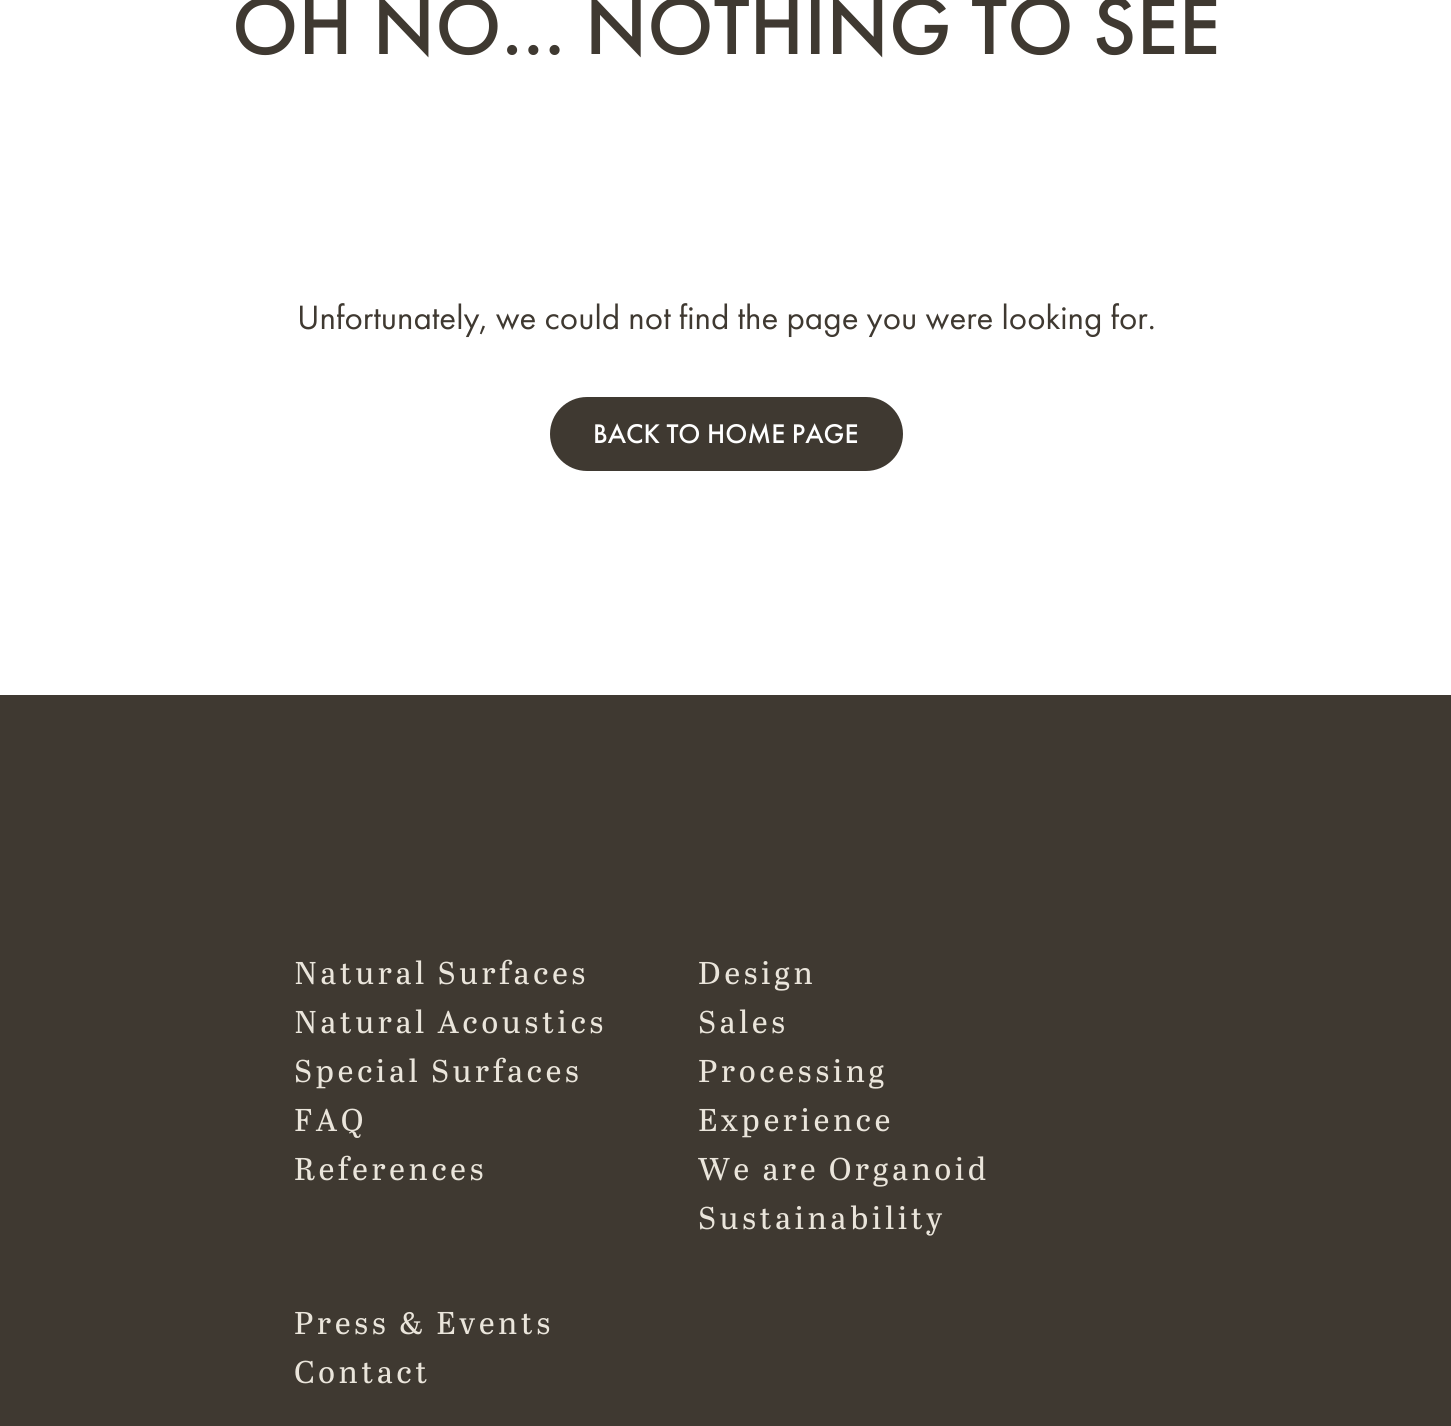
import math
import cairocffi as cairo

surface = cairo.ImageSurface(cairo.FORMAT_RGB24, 1451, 1426)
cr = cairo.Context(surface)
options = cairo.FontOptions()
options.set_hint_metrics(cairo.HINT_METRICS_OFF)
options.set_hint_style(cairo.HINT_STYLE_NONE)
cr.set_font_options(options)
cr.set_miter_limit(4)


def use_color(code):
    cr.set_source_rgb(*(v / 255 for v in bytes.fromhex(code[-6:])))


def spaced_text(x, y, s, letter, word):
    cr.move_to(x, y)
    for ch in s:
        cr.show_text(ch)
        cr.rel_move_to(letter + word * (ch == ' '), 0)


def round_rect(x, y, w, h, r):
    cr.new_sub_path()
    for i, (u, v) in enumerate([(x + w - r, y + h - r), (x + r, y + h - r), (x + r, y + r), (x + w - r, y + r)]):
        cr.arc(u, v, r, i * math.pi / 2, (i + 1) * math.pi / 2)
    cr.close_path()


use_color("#ffffff")
cr.paint()
cr.select_font_face("Futura PT Medium")
cr.set_font_size(84)
use_color("#3f3931")
cr.move_to(232, 54)
cr.show_text("OH NO... NOTHING TO SEE")
cr.select_font_face("Futura PT")
cr.set_font_size(35)
cr.move_to(297, 329)
cr.show_text("Unfortunately, we could not find the page you were looking for.")
round_rect(551, 398, 351, 72, 36)
cr.fill_preserve()
cr.stroke()
cr.select_font_face("Futura PT Medium")
cr.set_font_size(28)
use_color("#ffffff")
cr.move_to(593, 443)
cr.show_text("BACK TO HOME PAGE")
use_color("#3f3931")
cr.rectangle(0, 695, 1451, 731)
cr.fill()
cr.select_font_face("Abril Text")
cr.set_font_size(31.5)
use_color("#eae5db")
spaced_text(294, 984, "Natural Surfaces", 3.5, 0)
spaced_text(294, 1033, "Natural Acoustics", 3.5, 0)
spaced_text(294, 1082, "Special Surfaces", 3.5, 0)
spaced_text(294, 1131, "FAQ", 3.5, 0)
spaced_text(294, 1180, "References", 3.5, 0)
spaced_text(698, 984, "Design", 3.5, 0)
spaced_text(698, 1033, "Sales", 3.5, 0)
spaced_text(698, 1082, "Processing", 3.5, 0)
spaced_text(698, 1131, "Experience", 3.5, 0)
spaced_text(698, 1180, "We are Organoid", 3.5, 0)
spaced_text(698, 1229, "Sustainability", 3.5, 0)
spaced_text(294, 1334, "Press & Events", 3.5, 0)
spaced_text(294, 1383, "Contact", 3.5, 0)
surface.write_to_png("result.png")
